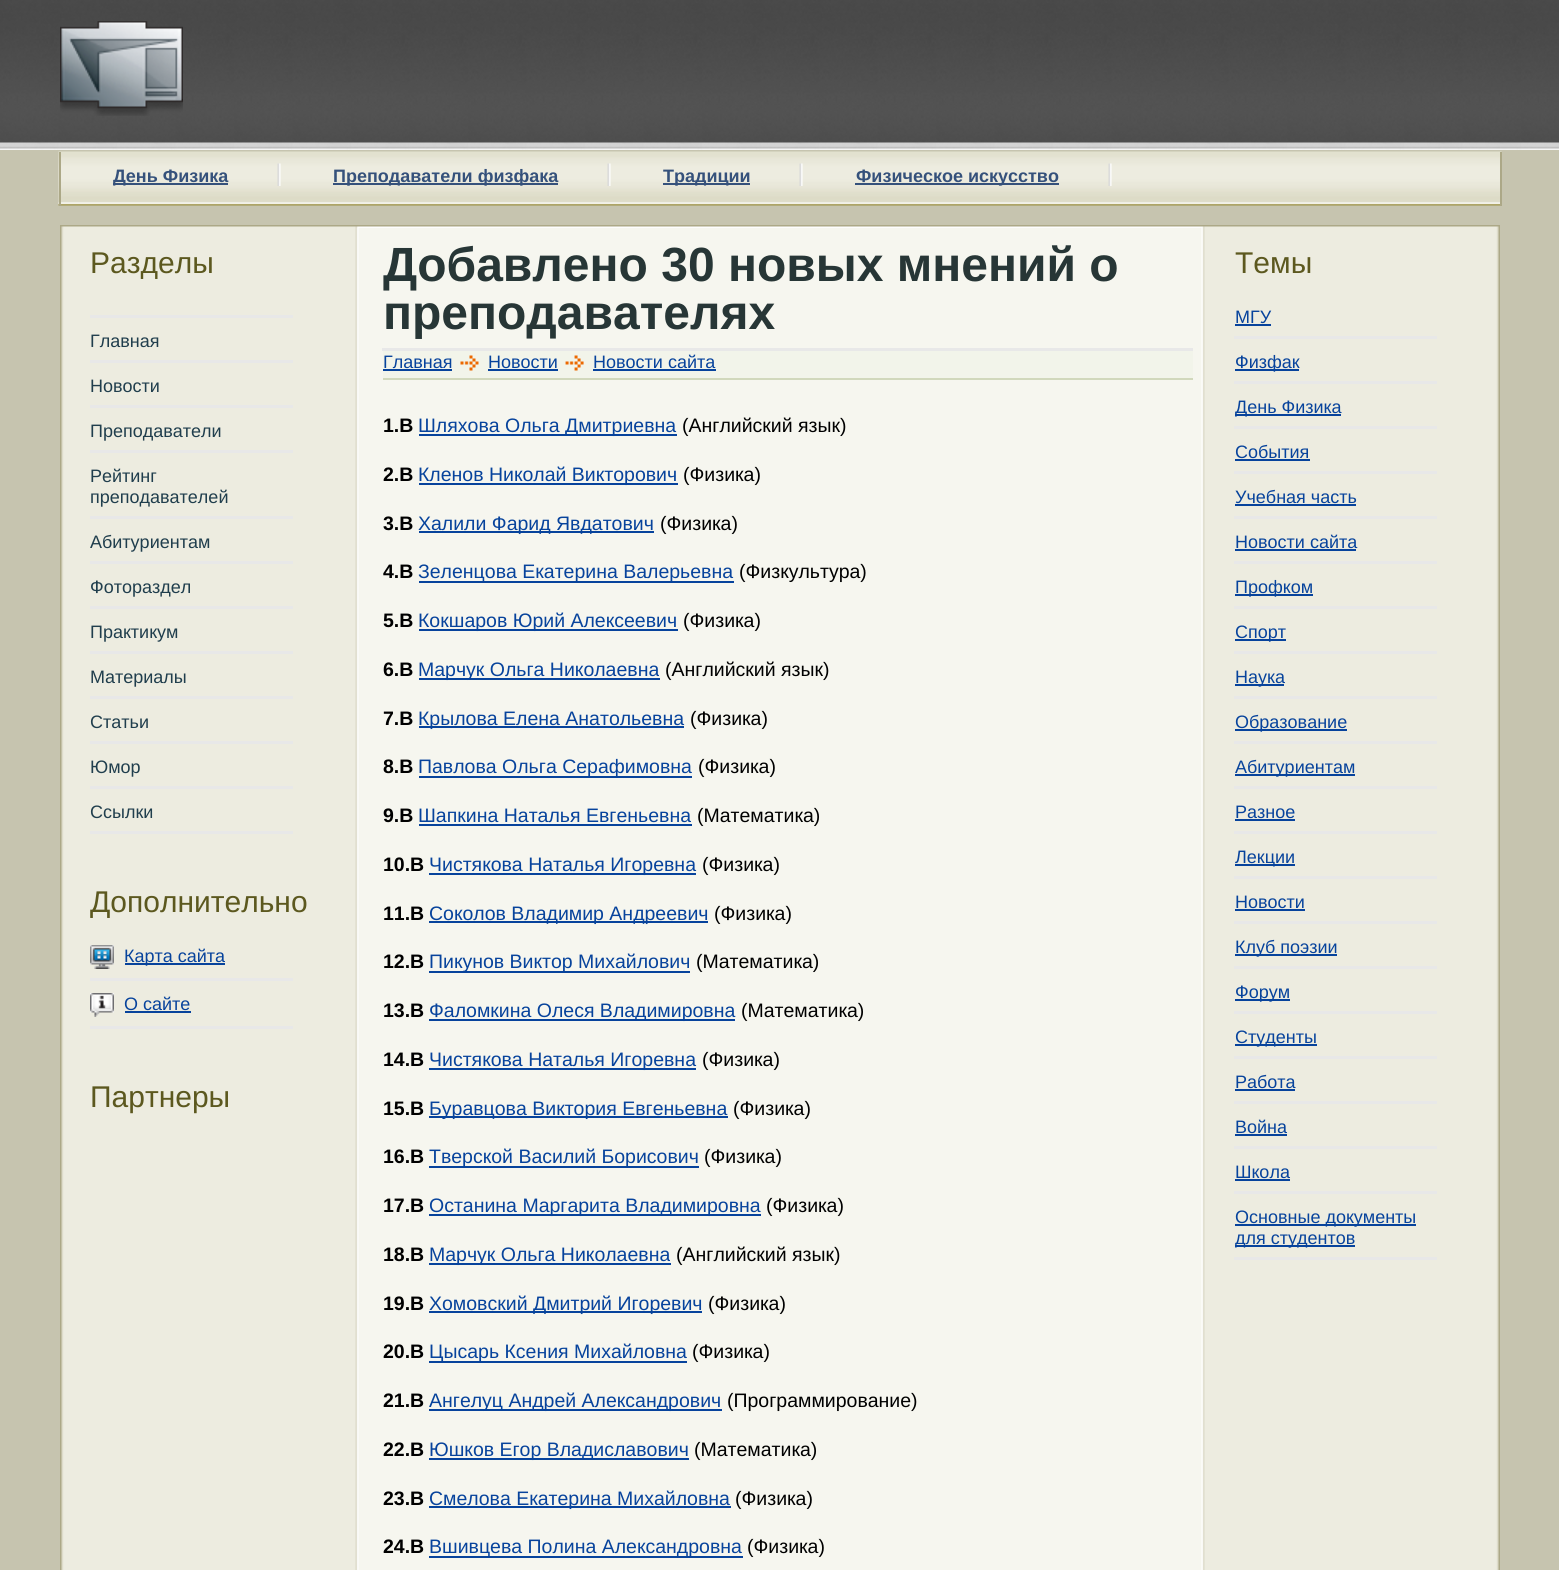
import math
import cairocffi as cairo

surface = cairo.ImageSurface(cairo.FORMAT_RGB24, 1559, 1570)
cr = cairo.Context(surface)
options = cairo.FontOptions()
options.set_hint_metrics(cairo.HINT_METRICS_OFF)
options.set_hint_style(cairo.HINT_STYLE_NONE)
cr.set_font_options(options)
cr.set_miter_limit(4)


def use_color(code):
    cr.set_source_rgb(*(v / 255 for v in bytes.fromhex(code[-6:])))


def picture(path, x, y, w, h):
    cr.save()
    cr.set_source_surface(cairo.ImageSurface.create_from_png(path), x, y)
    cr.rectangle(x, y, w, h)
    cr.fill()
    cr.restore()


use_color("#c6c4af")
cr.paint()
picture("img1.png", 0, 0, 1559, 150)
picture("img2.png", 60, 21, 123, 95)
picture("img3.png", 58, 151, 1444, 55)
use_color("#aca887")
cr.rectangle(1500, 152, 2, 54)
cr.fill()
cr.rectangle(59, 152, 2, 54)
cr.fill()
picture("img4.png", 277, 163, 4, 23)
use_color("#35517b")
cr.rectangle(113, 183, 115, 2)
cr.fill()
cr.select_font_face("Liberation Sans", cairo.FONT_SLANT_NORMAL, cairo.FONT_WEIGHT_BOLD)
cr.set_font_size(18)
cr.move_to(113, 182)
cr.show_text("День Физика")
picture("img4.png", 607, 163, 4, 23)
cr.rectangle(333, 183, 225, 2)
cr.fill()
cr.move_to(333, 182)
cr.show_text("Преподаватели физфака")
picture("img4.png", 799, 163, 4, 23)
cr.rectangle(663, 183, 87, 2)
cr.fill()
cr.move_to(663, 182)
cr.show_text("Традиции")
picture("img4.png", 1108, 163, 4, 23)
cr.rectangle(855, 183, 204, 2)
cr.fill()
cr.move_to(856, 182)
cr.show_text("Физическое искусство")
picture("img5.png", 60, 225, 1440, 1345)
picture("img6.png", 61, 225, 1438, 3)
cr.select_font_face("Liberation Sans")
cr.set_font_size(30)
use_color("#5c581f")
cr.move_to(90, 273)
cr.show_text("Разделы")
use_color("#e8e8e8")
cr.rectangle(90, 315, 203, 3)
cr.fill()
cr.rectangle(90, 360, 203, 3)
cr.fill()
cr.set_font_size(18)
use_color("#203e4d")
cr.move_to(90, 347)
cr.show_text("Главная")
use_color("#e8e8e8")
cr.rectangle(90, 405, 203, 3)
cr.fill()
use_color("#203e4d")
cr.move_to(90, 392)
cr.show_text("Новости")
use_color("#e8e8e8")
cr.rectangle(90, 450, 203, 3)
cr.fill()
use_color("#203e4d")
cr.move_to(90, 437)
cr.show_text("Преподаватели")
use_color("#e8e8e8")
cr.rectangle(90, 516, 203, 3)
cr.fill()
use_color("#203e4d")
cr.move_to(90, 482)
cr.show_text("Рейтинг")
cr.move_to(90, 503)
cr.show_text("преподавателей")
use_color("#e8e8e8")
cr.rectangle(90, 561, 203, 3)
cr.fill()
use_color("#203e4d")
cr.move_to(90, 548)
cr.show_text("Абитуриентам")
use_color("#e8e8e8")
cr.rectangle(90, 606, 203, 3)
cr.fill()
use_color("#203e4d")
cr.move_to(90, 593)
cr.show_text("Фотораздел")
use_color("#e8e8e8")
cr.rectangle(90, 651, 203, 3)
cr.fill()
use_color("#203e4d")
cr.move_to(90, 638)
cr.show_text("Практикум")
use_color("#e8e8e8")
cr.rectangle(90, 696, 203, 3)
cr.fill()
use_color("#203e4d")
cr.move_to(90, 683)
cr.show_text("Материалы")
use_color("#e8e8e8")
cr.rectangle(90, 741, 203, 3)
cr.fill()
use_color("#203e4d")
cr.move_to(90, 728)
cr.show_text("Статьи")
use_color("#e8e8e8")
cr.rectangle(90, 786, 203, 3)
cr.fill()
use_color("#203e4d")
cr.move_to(90, 773)
cr.show_text("Юмор")
use_color("#e8e8e8")
cr.rectangle(90, 831, 203, 3)
cr.fill()
use_color("#203e4d")
cr.move_to(90, 818)
cr.show_text("Ссылки")
cr.set_font_size(30)
use_color("#5c581f")
cr.move_to(90, 912)
cr.show_text("Дополнительно")
use_color("#e8e8e8")
cr.rectangle(90, 978, 203, 3)
cr.fill()
picture("img7.png", 90, 945, 24, 24)
use_color("#07439c")
cr.rectangle(125, 963, 100, 2)
cr.fill()
cr.set_font_size(18)
cr.move_to(124, 962)
cr.show_text("Карта сайта")
use_color("#e8e8e8")
cr.rectangle(90, 1026, 203, 3)
cr.fill()
picture("img8.png", 90, 993, 24, 24)
use_color("#07439c")
cr.move_to(124, 1010)
cr.show_text("О сайте")
cr.rectangle(125, 1011, 66, 2)
cr.fill()
cr.set_font_size(30)
use_color("#5c581f")
cr.move_to(90, 1107)
cr.show_text("Партнеры")
use_color("#e8e8e8")
cr.rectangle(382, 348, 811, 3)
cr.fill()
cr.select_font_face("Liberation Sans", cairo.FONT_SLANT_NORMAL, cairo.FONT_WEIGHT_BOLD)
cr.set_font_size(48)
use_color("#273636")
cr.move_to(383, 281)
cr.show_text("Добавлено 30 новых мнений о")
cr.move_to(383, 329)
cr.show_text("преподавателях")
use_color("#f2f4ea")
cr.rectangle(383, 351, 810, 27)
cr.fill()
use_color("#d1d8bc")
cr.rectangle(383, 378, 810, 2)
cr.fill()
cr.select_font_face("Liberation Sans")
cr.set_font_size(18)
use_color("#07439c")
cr.move_to(383, 368)
cr.show_text("Главная")
cr.rectangle(383, 369, 69, 2)
cr.fill()
picture("img9.png", 460, 355, 19, 16)
cr.move_to(488, 368)
cr.show_text("Новости")
cr.rectangle(488, 369, 70, 2)
cr.fill()
picture("img10.png", 565, 355, 19, 16)
cr.move_to(593, 368)
cr.show_text("Новости сайта")
cr.rectangle(593, 369, 123, 2)
cr.fill()
cr.select_font_face("Liberation Sans", cairo.FONT_SLANT_NORMAL, cairo.FONT_WEIGHT_BOLD)
cr.set_font_size(19.5)
use_color("#000000")
cr.move_to(383, 432)
cr.show_text("1.В")
use_color("#07439c")
cr.rectangle(419, 434, 258, 2)
cr.fill()
cr.select_font_face("Liberation Sans")
cr.move_to(418, 432)
cr.show_text("Шляхова Ольга Дмитриевна")
use_color("#000000")
cr.move_to(682, 432)
cr.show_text("(Английский язык)")
cr.select_font_face("Liberation Sans", cairo.FONT_SLANT_NORMAL, cairo.FONT_WEIGHT_BOLD)
cr.move_to(383, 481)
cr.show_text("2.В")
use_color("#07439c")
cr.rectangle(419, 483, 259, 2)
cr.fill()
cr.select_font_face("Liberation Sans")
cr.move_to(418, 481)
cr.show_text("Кленов Николай Викторович")
use_color("#000000")
cr.move_to(683, 481)
cr.show_text("(Физика)")
cr.select_font_face("Liberation Sans", cairo.FONT_SLANT_NORMAL, cairo.FONT_WEIGHT_BOLD)
cr.move_to(383, 530)
cr.show_text("3.В")
use_color("#07439c")
cr.rectangle(419, 531, 235, 2)
cr.fill()
cr.select_font_face("Liberation Sans")
cr.move_to(418, 530)
cr.show_text("Халили Фарид Явдатович")
use_color("#000000")
cr.move_to(660, 530)
cr.show_text("(Физика)")
cr.select_font_face("Liberation Sans", cairo.FONT_SLANT_NORMAL, cairo.FONT_WEIGHT_BOLD)
cr.move_to(383, 578)
cr.show_text("4.В")
use_color("#07439c")
cr.rectangle(419, 581, 315, 2)
cr.fill()
cr.select_font_face("Liberation Sans")
cr.move_to(418, 578)
cr.show_text("Зеленцова Екатерина Валерьевна")
use_color("#000000")
cr.move_to(739, 578)
cr.show_text("(Физкультура)")
cr.select_font_face("Liberation Sans", cairo.FONT_SLANT_NORMAL, cairo.FONT_WEIGHT_BOLD)
cr.move_to(383, 627)
cr.show_text("5.В")
use_color("#07439c")
cr.rectangle(419, 629, 259, 2)
cr.fill()
cr.select_font_face("Liberation Sans")
cr.move_to(418, 627)
cr.show_text("Кокшаров Юрий Алексеевич")
use_color("#000000")
cr.move_to(683, 627)
cr.show_text("(Физика)")
cr.select_font_face("Liberation Sans", cairo.FONT_SLANT_NORMAL, cairo.FONT_WEIGHT_BOLD)
cr.move_to(383, 676)
cr.show_text("6.В")
use_color("#07439c")
cr.rectangle(419, 678, 241, 2)
cr.fill()
cr.select_font_face("Liberation Sans")
cr.move_to(418, 676)
cr.show_text("Марчук Ольга Николаевна")
use_color("#000000")
cr.move_to(665, 676)
cr.show_text("(Английский язык)")
cr.select_font_face("Liberation Sans", cairo.FONT_SLANT_NORMAL, cairo.FONT_WEIGHT_BOLD)
cr.move_to(383, 725)
cr.show_text("7.В")
use_color("#07439c")
cr.rectangle(419, 726, 265, 2)
cr.fill()
cr.select_font_face("Liberation Sans")
cr.move_to(418, 725)
cr.show_text("Крылова Елена Анатольевна")
use_color("#000000")
cr.move_to(690, 725)
cr.show_text("(Физика)")
cr.select_font_face("Liberation Sans", cairo.FONT_SLANT_NORMAL, cairo.FONT_WEIGHT_BOLD)
cr.move_to(383, 773)
cr.show_text("8.В")
use_color("#07439c")
cr.rectangle(419, 776, 273, 2)
cr.fill()
cr.select_font_face("Liberation Sans")
cr.move_to(418, 773)
cr.show_text("Павлова Ольга Серафимовна")
use_color("#000000")
cr.move_to(698, 773)
cr.show_text("(Физика)")
cr.select_font_face("Liberation Sans", cairo.FONT_SLANT_NORMAL, cairo.FONT_WEIGHT_BOLD)
cr.move_to(383, 822)
cr.show_text("9.В")
cr.select_font_face("Liberation Sans")
use_color("#07439c")
cr.move_to(418, 822)
cr.show_text("Шапкина Наталья Евгеньевна")
cr.rectangle(419, 824, 273, 2)
cr.fill()
use_color("#000000")
cr.move_to(697, 822)
cr.show_text("(Математика)")
cr.select_font_face("Liberation Sans", cairo.FONT_SLANT_NORMAL, cairo.FONT_WEIGHT_BOLD)
cr.move_to(383, 871)
cr.show_text("10.В")
use_color("#07439c")
cr.rectangle(429, 873, 267, 2)
cr.fill()
cr.select_font_face("Liberation Sans")
cr.move_to(429, 871)
cr.show_text("Чистякова Наталья Игоревна")
use_color("#000000")
cr.move_to(702, 871)
cr.show_text("(Физика)")
cr.select_font_face("Liberation Sans", cairo.FONT_SLANT_NORMAL, cairo.FONT_WEIGHT_BOLD)
cr.move_to(383, 920)
cr.show_text("11.В")
use_color("#07439c")
cr.rectangle(429, 921, 279, 2)
cr.fill()
cr.select_font_face("Liberation Sans")
cr.move_to(429, 920)
cr.show_text("Соколов Владимир Андреевич")
use_color("#000000")
cr.move_to(714, 920)
cr.show_text("(Физика)")
cr.select_font_face("Liberation Sans", cairo.FONT_SLANT_NORMAL, cairo.FONT_WEIGHT_BOLD)
cr.move_to(383, 968)
cr.show_text("12.В")
use_color("#07439c")
cr.rectangle(429, 971, 261, 2)
cr.fill()
cr.select_font_face("Liberation Sans")
cr.move_to(429, 968)
cr.show_text("Пикунов Виктор Михайлович")
use_color("#000000")
cr.move_to(696, 968)
cr.show_text("(Математика)")
cr.select_font_face("Liberation Sans", cairo.FONT_SLANT_NORMAL, cairo.FONT_WEIGHT_BOLD)
cr.move_to(383, 1017)
cr.show_text("13.В")
use_color("#07439c")
cr.rectangle(429, 1019, 306, 2)
cr.fill()
cr.select_font_face("Liberation Sans")
cr.move_to(429, 1017)
cr.show_text("Фаломкина Олеся Владимировна")
use_color("#000000")
cr.move_to(741, 1017)
cr.show_text("(Математика)")
cr.select_font_face("Liberation Sans", cairo.FONT_SLANT_NORMAL, cairo.FONT_WEIGHT_BOLD)
cr.move_to(383, 1066)
cr.show_text("14.В")
use_color("#07439c")
cr.rectangle(429, 1068, 267, 2)
cr.fill()
cr.select_font_face("Liberation Sans")
cr.move_to(429, 1066)
cr.show_text("Чистякова Наталья Игоревна")
use_color("#000000")
cr.move_to(702, 1066)
cr.show_text("(Физика)")
cr.select_font_face("Liberation Sans", cairo.FONT_SLANT_NORMAL, cairo.FONT_WEIGHT_BOLD)
cr.move_to(383, 1115)
cr.show_text("15.В")
use_color("#07439c")
cr.rectangle(429, 1116, 299, 2)
cr.fill()
cr.select_font_face("Liberation Sans")
cr.move_to(429, 1115)
cr.show_text("Буравцова Виктория Евгеньевна")
use_color("#000000")
cr.move_to(733, 1115)
cr.show_text("(Физика)")
cr.select_font_face("Liberation Sans", cairo.FONT_SLANT_NORMAL, cairo.FONT_WEIGHT_BOLD)
cr.move_to(383, 1163)
cr.show_text("16.В")
use_color("#07439c")
cr.rectangle(429, 1166, 270, 2)
cr.fill()
cr.select_font_face("Liberation Sans")
cr.move_to(429, 1163)
cr.show_text("Тверской Василий Борисович")
use_color("#000000")
cr.move_to(704, 1163)
cr.show_text("(Физика)")
cr.select_font_face("Liberation Sans", cairo.FONT_SLANT_NORMAL, cairo.FONT_WEIGHT_BOLD)
cr.move_to(383, 1212)
cr.show_text("17.В")
use_color("#07439c")
cr.rectangle(429, 1214, 332, 2)
cr.fill()
cr.select_font_face("Liberation Sans")
cr.move_to(429, 1212)
cr.show_text("Останина Маргарита Владимировна")
use_color("#000000")
cr.move_to(766, 1212)
cr.show_text("(Физика)")
cr.select_font_face("Liberation Sans", cairo.FONT_SLANT_NORMAL, cairo.FONT_WEIGHT_BOLD)
cr.move_to(383, 1261)
cr.show_text("18.В")
use_color("#07439c")
cr.rectangle(429, 1263, 242, 2)
cr.fill()
cr.select_font_face("Liberation Sans")
cr.move_to(429, 1261)
cr.show_text("Марчук Ольга Николаевна")
use_color("#000000")
cr.move_to(676, 1261)
cr.show_text("(Английский язык)")
cr.select_font_face("Liberation Sans", cairo.FONT_SLANT_NORMAL, cairo.FONT_WEIGHT_BOLD)
cr.move_to(383, 1310)
cr.show_text("19.В")
use_color("#07439c")
cr.rectangle(429, 1311, 273, 2)
cr.fill()
cr.select_font_face("Liberation Sans")
cr.move_to(429, 1310)
cr.show_text("Хомовский Дмитрий Игоревич")
use_color("#000000")
cr.move_to(708, 1310)
cr.show_text("(Физика)")
cr.select_font_face("Liberation Sans", cairo.FONT_SLANT_NORMAL, cairo.FONT_WEIGHT_BOLD)
cr.move_to(383, 1358)
cr.show_text("20.В")
use_color("#07439c")
cr.rectangle(429, 1361, 258, 2)
cr.fill()
cr.select_font_face("Liberation Sans")
cr.move_to(429, 1358)
cr.show_text("Цысарь Ксения Михайловна")
use_color("#000000")
cr.move_to(692, 1358)
cr.show_text("(Физика)")
cr.select_font_face("Liberation Sans", cairo.FONT_SLANT_NORMAL, cairo.FONT_WEIGHT_BOLD)
cr.move_to(383, 1407)
cr.show_text("21.В")
use_color("#07439c")
cr.rectangle(429, 1409, 293, 2)
cr.fill()
cr.select_font_face("Liberation Sans")
cr.move_to(429, 1407)
cr.show_text("Ангелуц Андрей Александрович")
use_color("#000000")
cr.move_to(727, 1407)
cr.show_text("(Программирование)")
cr.select_font_face("Liberation Sans", cairo.FONT_SLANT_NORMAL, cairo.FONT_WEIGHT_BOLD)
cr.move_to(383, 1456)
cr.show_text("22.В")
use_color("#07439c")
cr.rectangle(429, 1458, 260, 2)
cr.fill()
cr.select_font_face("Liberation Sans")
cr.move_to(429, 1456)
cr.show_text("Юшков Егор Владиславович")
use_color("#000000")
cr.move_to(694, 1456)
cr.show_text("(Математика)")
cr.select_font_face("Liberation Sans", cairo.FONT_SLANT_NORMAL, cairo.FONT_WEIGHT_BOLD)
cr.move_to(383, 1505)
cr.show_text("23.В")
use_color("#07439c")
cr.rectangle(429, 1506, 302, 2)
cr.fill()
cr.select_font_face("Liberation Sans")
cr.move_to(429, 1505)
cr.show_text("Смелова Екатерина Михайловна")
use_color("#000000")
cr.move_to(735, 1505)
cr.show_text("(Физика)")
cr.select_font_face("Liberation Sans", cairo.FONT_SLANT_NORMAL, cairo.FONT_WEIGHT_BOLD)
cr.move_to(383, 1553)
cr.show_text("24.В")
use_color("#07439c")
cr.rectangle(429, 1556, 314, 2)
cr.fill()
cr.select_font_face("Liberation Sans")
cr.move_to(429, 1553)
cr.show_text("Вшивцева Полина Александровна")
use_color("#000000")
cr.move_to(747, 1553)
cr.show_text("(Физика)")
cr.set_font_size(30)
use_color("#5c581f")
cr.move_to(1235, 273)
cr.show_text("Темы")
use_color("#e8e8e8")
cr.rectangle(1234, 336, 203, 3)
cr.fill()
cr.set_font_size(18)
use_color("#07439c")
cr.move_to(1235, 323)
cr.show_text("МГУ")
cr.rectangle(1235, 324, 36, 2)
cr.fill()
use_color("#e8e8e8")
cr.rectangle(1234, 381, 203, 3)
cr.fill()
use_color("#07439c")
cr.rectangle(1235, 369, 64, 2)
cr.fill()
cr.move_to(1235, 368)
cr.show_text("Физфак")
use_color("#e8e8e8")
cr.rectangle(1234, 426, 203, 3)
cr.fill()
use_color("#07439c")
cr.rectangle(1235, 414, 106, 2)
cr.fill()
cr.move_to(1235, 413)
cr.show_text("День Физика")
use_color("#e8e8e8")
cr.rectangle(1234, 471, 203, 3)
cr.fill()
use_color("#07439c")
cr.move_to(1235, 458)
cr.show_text("События")
cr.rectangle(1235, 459, 75, 2)
cr.fill()
use_color("#e8e8e8")
cr.rectangle(1234, 516, 203, 3)
cr.fill()
use_color("#07439c")
cr.move_to(1235, 503)
cr.show_text("Учебная часть")
cr.rectangle(1235, 504, 121, 2)
cr.fill()
use_color("#e8e8e8")
cr.rectangle(1234, 561, 203, 3)
cr.fill()
use_color("#07439c")
cr.move_to(1235, 548)
cr.show_text("Новости сайта")
cr.rectangle(1235, 549, 121, 2)
cr.fill()
use_color("#e8e8e8")
cr.rectangle(1234, 606, 203, 3)
cr.fill()
use_color("#07439c")
cr.rectangle(1235, 594, 78, 2)
cr.fill()
cr.move_to(1235, 593)
cr.show_text("Профком")
use_color("#e8e8e8")
cr.rectangle(1234, 651, 203, 3)
cr.fill()
use_color("#07439c")
cr.rectangle(1235, 639, 51, 2)
cr.fill()
cr.move_to(1235, 638)
cr.show_text("Спорт")
use_color("#e8e8e8")
cr.rectangle(1234, 696, 203, 3)
cr.fill()
use_color("#07439c")
cr.rectangle(1235, 684, 49, 2)
cr.fill()
cr.move_to(1235, 683)
cr.show_text("Наука")
use_color("#e8e8e8")
cr.rectangle(1234, 741, 203, 3)
cr.fill()
use_color("#07439c")
cr.rectangle(1235, 729, 112, 2)
cr.fill()
cr.move_to(1235, 728)
cr.show_text("Образование")
use_color("#e8e8e8")
cr.rectangle(1234, 786, 203, 3)
cr.fill()
use_color("#07439c")
cr.rectangle(1235, 774, 120, 2)
cr.fill()
cr.move_to(1235, 773)
cr.show_text("Абитуриентам")
use_color("#e8e8e8")
cr.rectangle(1234, 831, 203, 3)
cr.fill()
use_color("#07439c")
cr.move_to(1235, 818)
cr.show_text("Разное")
cr.rectangle(1235, 819, 60, 2)
cr.fill()
use_color("#e8e8e8")
cr.rectangle(1234, 876, 203, 3)
cr.fill()
use_color("#07439c")
cr.rectangle(1235, 864, 60, 2)
cr.fill()
cr.move_to(1235, 863)
cr.show_text("Лекции")
use_color("#e8e8e8")
cr.rectangle(1234, 921, 203, 3)
cr.fill()
use_color("#07439c")
cr.move_to(1235, 908)
cr.show_text("Новости")
cr.rectangle(1235, 909, 70, 2)
cr.fill()
use_color("#e8e8e8")
cr.rectangle(1234, 966, 203, 3)
cr.fill()
use_color("#07439c")
cr.rectangle(1235, 954, 102, 2)
cr.fill()
cr.move_to(1235, 953)
cr.show_text("Клуб поэзии")
use_color("#e8e8e8")
cr.rectangle(1234, 1011, 203, 3)
cr.fill()
use_color("#07439c")
cr.rectangle(1235, 999, 55, 2)
cr.fill()
cr.move_to(1235, 998)
cr.show_text("Форум")
use_color("#e8e8e8")
cr.rectangle(1234, 1056, 203, 3)
cr.fill()
use_color("#07439c")
cr.rectangle(1235, 1044, 82, 2)
cr.fill()
cr.move_to(1235, 1043)
cr.show_text("Студенты")
use_color("#e8e8e8")
cr.rectangle(1234, 1101, 203, 3)
cr.fill()
use_color("#07439c")
cr.move_to(1235, 1088)
cr.show_text("Работа")
cr.rectangle(1235, 1089, 60, 2)
cr.fill()
use_color("#e8e8e8")
cr.rectangle(1234, 1146, 203, 3)
cr.fill()
use_color("#07439c")
cr.move_to(1235, 1133)
cr.show_text("Война")
cr.rectangle(1235, 1134, 52, 2)
cr.fill()
use_color("#e8e8e8")
cr.rectangle(1234, 1191, 203, 3)
cr.fill()
use_color("#07439c")
cr.move_to(1235, 1178)
cr.show_text("Школа")
cr.rectangle(1235, 1179, 55, 2)
cr.fill()
use_color("#e8e8e8")
cr.rectangle(1234, 1257, 203, 3)
cr.fill()
use_color("#07439c")
cr.rectangle(1235, 1224, 181, 2)
cr.fill()
cr.move_to(1235, 1223)
cr.show_text("Основные документы")
cr.rectangle(1235, 1245, 120, 2)
cr.fill()
cr.move_to(1235, 1244)
cr.show_text("для студентов")
surface.write_to_png("result.png")
